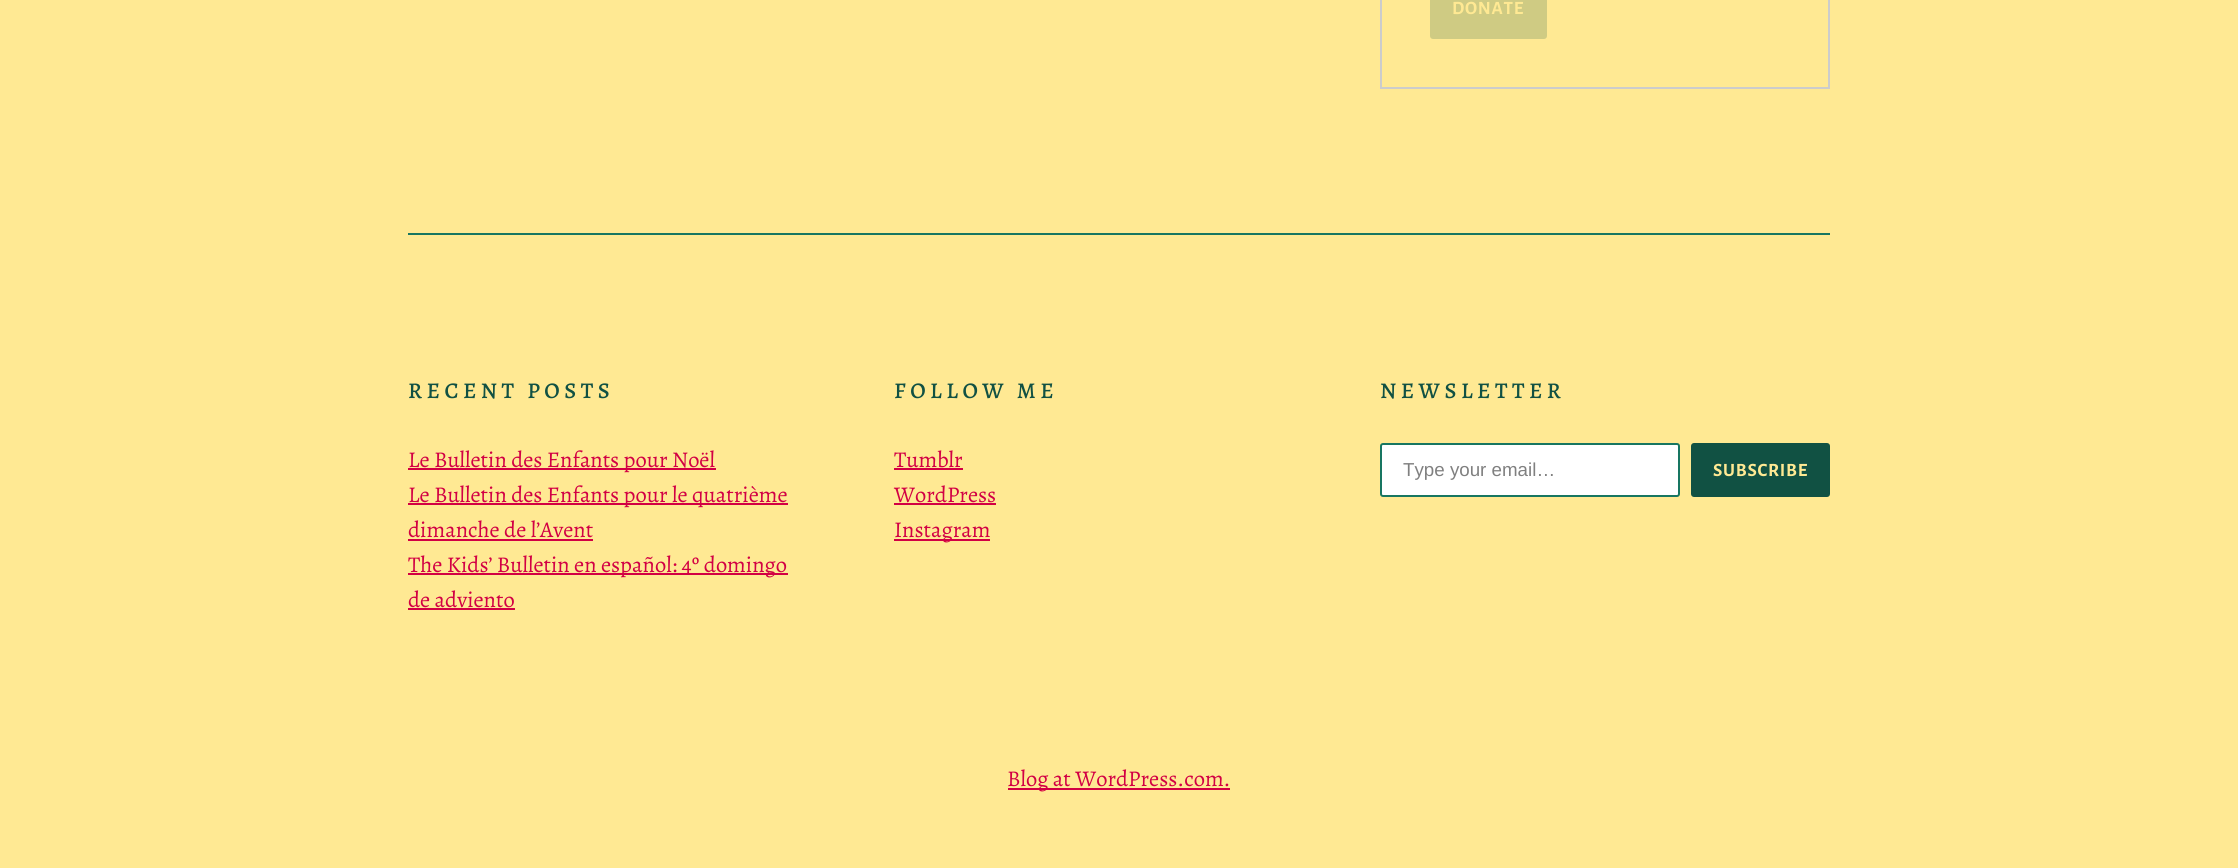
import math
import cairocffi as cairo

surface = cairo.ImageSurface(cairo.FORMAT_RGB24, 2238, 868)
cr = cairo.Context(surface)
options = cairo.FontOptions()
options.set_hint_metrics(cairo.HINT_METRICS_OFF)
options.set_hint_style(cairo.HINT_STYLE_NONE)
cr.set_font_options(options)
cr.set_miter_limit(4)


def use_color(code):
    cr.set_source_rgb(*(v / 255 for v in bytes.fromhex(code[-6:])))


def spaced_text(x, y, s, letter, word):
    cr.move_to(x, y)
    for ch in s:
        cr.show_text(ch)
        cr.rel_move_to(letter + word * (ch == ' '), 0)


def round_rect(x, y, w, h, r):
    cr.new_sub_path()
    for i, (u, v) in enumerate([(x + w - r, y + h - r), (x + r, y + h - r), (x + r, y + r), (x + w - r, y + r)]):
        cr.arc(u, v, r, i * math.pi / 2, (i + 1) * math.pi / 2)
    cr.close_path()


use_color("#ffe993")
cr.paint()
cr.rectangle(1381, -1, 448, 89)
use_color("#cccccc")
cr.stroke()
use_color("#cfcb83")
round_rect(1430, -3, 117, 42, 3)
cr.fill()
cr.select_font_face("Alegreya Sans", cairo.FONT_SLANT_NORMAL, cairo.FONT_WEIGHT_BOLD)
cr.set_font_size(18.75)
use_color("#ffe993")
spaced_text(1452, 14, "DONATE", 0.75, 0)
use_color("#187661")
cr.rectangle(408, 233, 1422, 2)
cr.fill()
cr.select_font_face("Alegreya Medium")
cr.set_font_size(22.5)
use_color("#115143")
spaced_text(408, 398, "RECENT POSTS", 4.5, 0)
use_color("#d20044")
cr.rectangle(408, 468, 308, 2)
cr.fill()
cr.select_font_face("Alegreya")
cr.move_to(408, 467)
cr.show_text("Le Bulletin des Enfants pour Noël")
cr.rectangle(408, 503, 380, 2)
cr.fill()
cr.move_to(408, 502)
cr.show_text("Le Bulletin des Enfants pour le quatrième")
cr.move_to(408, 537)
cr.show_text("dimanche de l’Avent")
cr.rectangle(408, 539, 185, 2)
cr.fill()
cr.rectangle(408, 573, 380, 2)
cr.fill()
cr.move_to(408, 572)
cr.show_text("The Kids’ Bulletin en español: 4º domingo")
cr.move_to(408, 607)
cr.show_text("de adviento")
cr.rectangle(408, 608, 107, 2)
cr.fill()
cr.select_font_face("Alegreya Medium")
use_color("#115143")
spaced_text(894, 398, "FOLLOW ME", 4.5, 0)
cr.select_font_face("Alegreya")
use_color("#d20044")
cr.move_to(894, 467)
cr.show_text("Tumblr")
cr.rectangle(894, 468, 69, 2)
cr.fill()
cr.move_to(894, 502)
cr.show_text("WordPress")
cr.rectangle(894, 503, 102, 2)
cr.fill()
cr.rectangle(894, 539, 96, 2)
cr.fill()
cr.move_to(894, 537)
cr.show_text("Instagram")
cr.select_font_face("Alegreya Medium")
use_color("#115143")
spaced_text(1380, 398, "NEWSLETTER", 4.5, 0)
use_color("#ffffff")
round_rect(1381, 444, 298, 52, 2)
cr.fill_preserve()
use_color("#187661")
cr.stroke()
cr.select_font_face("Liberation Sans")
cr.set_font_size(18.75)
use_color("#808080")
cr.move_to(1403, 476)
cr.show_text("Type your email…")
use_color("#115143")
round_rect(1691, 443, 139, 54, 3)
cr.fill()
cr.select_font_face("Alegreya Sans", cairo.FONT_SLANT_NORMAL, cairo.FONT_WEIGHT_BOLD)
use_color("#ffe993")
spaced_text(1713, 476, "SUBSCRIBE", 0.75, 0)
use_color("#d20044")
cr.rectangle(1008, 788, 222, 2)
cr.fill()
cr.select_font_face("Alegreya")
cr.set_font_size(22.5)
cr.move_to(1007, 786)
cr.show_text("Blog at WordPress.com.")
surface.write_to_png("result.png")
